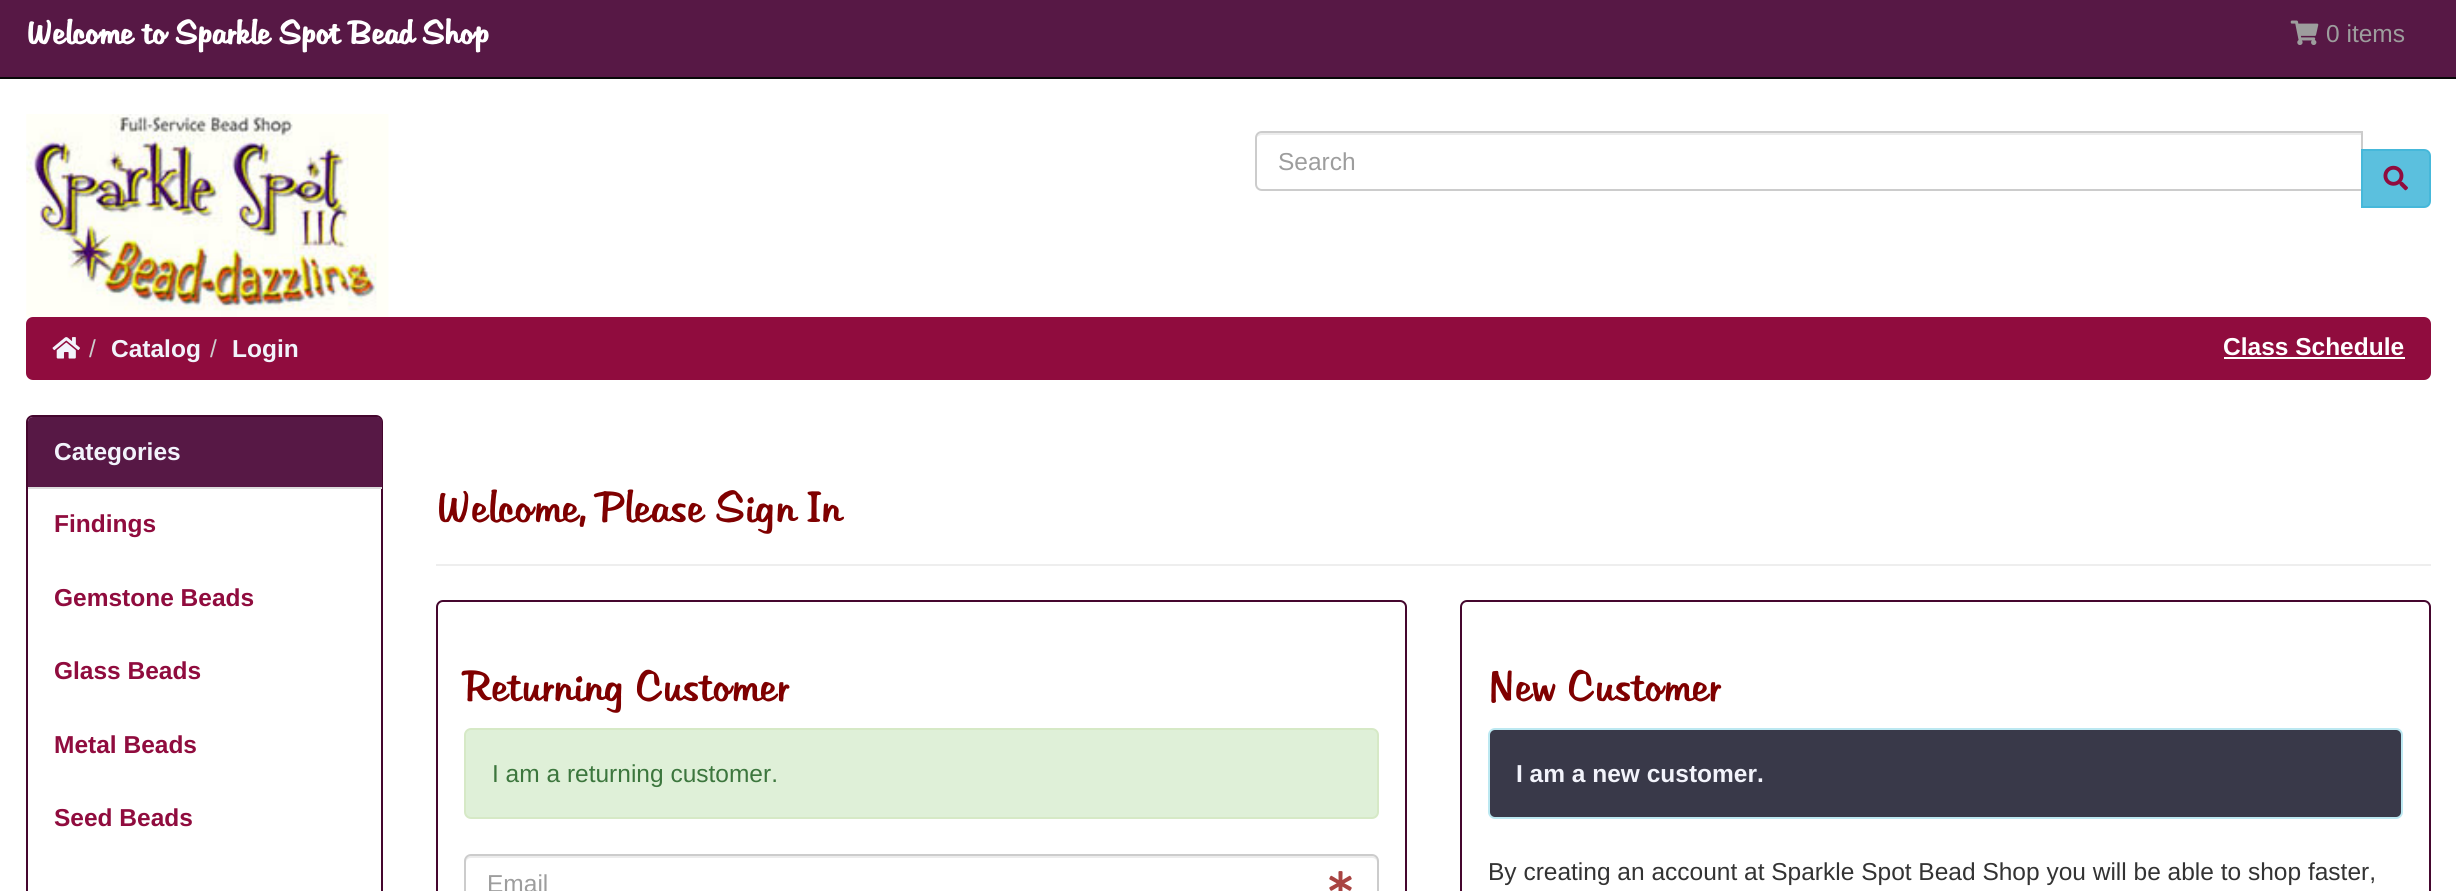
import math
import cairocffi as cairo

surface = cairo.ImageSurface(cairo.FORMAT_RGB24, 2456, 891)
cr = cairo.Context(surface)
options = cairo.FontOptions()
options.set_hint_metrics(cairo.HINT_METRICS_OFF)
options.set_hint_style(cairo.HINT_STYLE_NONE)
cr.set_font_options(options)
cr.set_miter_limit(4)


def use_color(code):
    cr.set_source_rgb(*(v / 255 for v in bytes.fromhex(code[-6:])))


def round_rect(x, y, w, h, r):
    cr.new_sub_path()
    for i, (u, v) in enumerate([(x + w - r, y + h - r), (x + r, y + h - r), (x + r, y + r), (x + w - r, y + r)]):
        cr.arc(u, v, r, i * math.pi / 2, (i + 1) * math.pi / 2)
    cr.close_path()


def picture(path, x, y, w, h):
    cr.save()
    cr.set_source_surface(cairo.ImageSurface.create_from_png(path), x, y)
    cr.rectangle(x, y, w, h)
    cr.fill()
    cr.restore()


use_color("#ffffff")
cr.paint()
use_color("#571845")
cr.rectangle(0, 0, 2456, 77)
cr.fill()
use_color("#080808")
cr.rectangle(0, 77, 2456, 2)
cr.fill()
cr.select_font_face("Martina", cairo.FONT_SLANT_NORMAL, cairo.FONT_WEIGHT_BOLD)
cr.set_font_size(31.5)
use_color("#ffffff")
cr.move_to(26, 44)
cr.show_text("Welcome to Sparkle Spot Bead Shop")
picture("img1.png", 2290, 20, 29, 25)
cr.select_font_face("Liberation Sans")
cr.set_font_size(24.5)
use_color("#9d9d9d")
cr.move_to(2326, 42)
cr.show_text("0 items")
picture("img2.png", 26, 114, 363, 203)
use_color("#ececec")
cr.new_path()
cr.move_to(1262, 135)
cr.line_to(2361, 135)
cr.line_to(2361, 133)
cr.line_to(1262, 133)
cr.curve_to(1260, 133, 1257, 135, 1257, 137)
cr.curve_to(1258, 136, 1260, 135, 1262, 135)
cr.close_path()
cr.fill()
cr.new_path()
cr.move_to(1262, 132)
cr.line_to(2362, 132)
cr.line_to(2362, 190)
cr.line_to(1262, 190)
cr.curve_to(1258.5, 190, 1256, 187.5, 1256, 184)
cr.line_to(1256, 138)
cr.curve_to(1256, 134.5, 1258.5, 132, 1262, 132)
cr.close_path()
use_color("#cccccc")
cr.stroke()
use_color("#9d9d9d")
cr.move_to(1278, 170)
cr.show_text("Search")
use_color("#5bc0de")
cr.new_path()
cr.move_to(2362, 150)
cr.line_to(2424, 150)
cr.curve_to(2427.5, 150, 2430, 152.5, 2430, 156)
cr.line_to(2430, 201)
cr.curve_to(2430, 204.5, 2427.5, 207, 2424, 207)
cr.line_to(2362, 207)
cr.close_path()
cr.fill_preserve()
use_color("#46b8da")
cr.stroke()
picture("img3.png", 2383, 165, 25, 26)
use_color("#900c3e")
round_rect(26, 317, 2405, 63, 7)
cr.fill()
picture("img4.png", 52, 337, 28, 22)
use_color("#cccccc")
cr.move_to(89, 357)
cr.show_text("/")
cr.select_font_face("Liberation Sans", cairo.FONT_SLANT_NORMAL, cairo.FONT_WEIGHT_BOLD)
use_color("#f2f3fb")
cr.move_to(111, 357)
cr.show_text("Catalog")
cr.select_font_face("Liberation Sans")
use_color("#cccccc")
cr.move_to(210, 357)
cr.show_text("/")
cr.select_font_face("Liberation Sans", cairo.FONT_SLANT_NORMAL, cairo.FONT_WEIGHT_BOLD)
use_color("#f2f3fb")
cr.move_to(232, 357)
cr.show_text("Login")
use_color("#ffffff")
cr.move_to(2223, 355)
cr.show_text("Class Schedule")
cr.rectangle(2224, 357, 181, 2)
cr.fill()
round_rect(27, 416, 355, 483, 6)
use_color("#45062e")
cr.stroke()
use_color("#571845")
cr.new_path()
cr.move_to(33, 417)
cr.line_to(377, 417)
cr.curve_to(380, 417, 382, 419, 382, 422)
cr.line_to(382, 488)
cr.line_to(28, 488)
cr.line_to(28, 422)
cr.curve_to(28, 419, 30, 417, 33, 417)
cr.close_path()
cr.fill()
use_color("#dddddd")
cr.rectangle(28, 487, 354, 2)
cr.fill()
use_color("#f2f3fb")
cr.move_to(54, 460)
cr.show_text("Categories")
use_color("#900c3e")
cr.move_to(54, 532)
cr.show_text("Findings")
cr.move_to(54, 606)
cr.show_text("Gemstone Beads")
cr.move_to(54, 679)
cr.show_text("Glass Beads")
cr.move_to(54, 753)
cr.show_text("Metal Beads")
cr.move_to(54, 826)
cr.show_text("Seed Beads")
use_color("#eeeeee")
cr.rectangle(436, 564, 1995, 2)
cr.fill()
cr.select_font_face("Martina Thin")
cr.set_font_size(42)
use_color("#7f0000")
cr.move_to(436, 522)
cr.show_text("Welcome, Please Sign In")
round_rect(437, 601, 969, 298, 6)
use_color("#45062e")
cr.stroke()
use_color("#7f0000")
cr.move_to(464, 701)
cr.show_text("Returning Customer")
use_color("#dff0d8")
round_rect(465, 729, 913, 89, 6)
cr.fill_preserve()
use_color("#d6e9c6")
cr.stroke()
cr.select_font_face("Liberation Sans")
cr.set_font_size(24.5)
use_color("#3c763d")
cr.move_to(492, 782)
cr.show_text("I am a returning customer.")
use_color("#ececec")
cr.new_path()
cr.move_to(471, 858)
cr.line_to(1372, 858)
cr.curve_to(1375, 858, 1377, 860, 1377, 863)
cr.line_to(1377, 861)
cr.curve_to(1377, 858, 1375, 856, 1372, 856)
cr.line_to(471, 856)
cr.curve_to(468, 856, 466, 858, 466, 861)
cr.line_to(466, 863)
cr.curve_to(466, 860, 468, 858, 471, 858)
cr.close_path()
cr.fill()
round_rect(465, 855, 913, 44, 6)
use_color("#cccccc")
cr.stroke()
use_color("#9d9d9d")
cr.move_to(487, 892)
cr.show_text("Email")
picture("img5.png", 1329, 871, 23, 20)
round_rect(1461, 601, 969, 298, 6)
use_color("#45062e")
cr.stroke()
cr.select_font_face("Martina Thin")
cr.set_font_size(42)
use_color("#7f0000")
cr.move_to(1488, 701)
cr.show_text("New Customer")
use_color("#393949")
round_rect(1489, 729, 913, 89, 6)
cr.fill_preserve()
use_color("#bce8f1")
cr.stroke()
cr.select_font_face("Liberation Sans", cairo.FONT_SLANT_NORMAL, cairo.FONT_WEIGHT_BOLD)
cr.set_font_size(24.5)
use_color("#f2f3fb")
cr.move_to(1516, 782)
cr.show_text("I am a new customer.")
cr.select_font_face("Liberation Sans")
use_color("#333333")
cr.move_to(1488, 880)
cr.show_text("By creating an account at Sparkle Spot Bead Shop you will be able to shop faster,")
surface.write_to_png("result.png")
